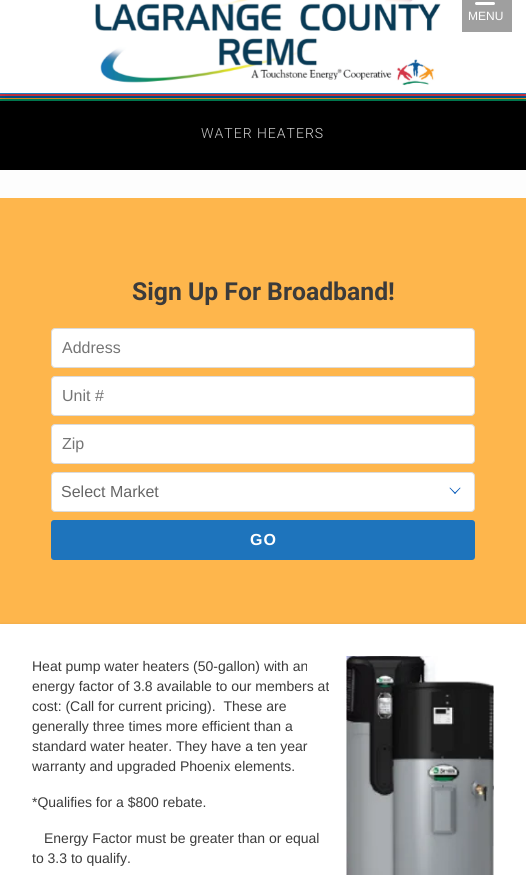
import math
import cairocffi as cairo

surface = cairo.ImageSurface(cairo.FORMAT_RGB24, 526, 875)
cr = cairo.Context(surface)
options = cairo.FontOptions()
options.set_hint_metrics(cairo.HINT_METRICS_OFF)
options.set_hint_style(cairo.HINT_STYLE_NONE)
cr.set_font_options(options)
cr.set_miter_limit(4)


def use_color(code):
    cr.set_source_rgb(*(v / 255 for v in bytes.fromhex(code[-6:])))


def spaced_text(x, y, s, letter, word):
    cr.move_to(x, y)
    for ch in s:
        cr.show_text(ch)
        cr.rel_move_to(letter + word * (ch == ' '), 0)


def round_rect(x, y, w, h, r):
    cr.new_sub_path()
    for i, (u, v) in enumerate([(x + w - r, y + h - r), (x + r, y + h - r), (x + r, y + r), (x + w - r, y + r)]):
        cr.arc(u, v, r, i * math.pi / 2, (i + 1) * math.pi / 2)
    cr.close_path()


def shadow(x, y, w, h, r, blur, alpha):
    cr.push_group_with_content(cairo.CONTENT_ALPHA)
    cr.set_operator(cairo.OPERATOR_SOURCE)
    for i in range(15, -16, -2):
        e = blur * i / 6
        if min(w, h) + 2 * e > 0:
            cr.set_source_rgba(0, 0, 0, alpha * math.erfc((i - 1) / 8.5) / 2)
            round_rect(x - e, y - e, w + 2 * e, h + 2 * e, max(0, min(r + e + blur * .6, min(w, h) / 2 + e)))
            cr.fill()
    cr.mask(cr.pop_group())


def picture(path, x, y, w, h):
    cr.save()
    cr.set_source_surface(cairo.ImageSurface.create_from_png(path), x, y)
    cr.rectangle(x, y, w, h)
    cr.fill()
    cr.restore()


use_color("#fdfdfd")
cr.paint()
use_color("#d73647")
cr.rectangle(0, 94, 526, 2)
cr.fill()
use_color("#005a9c")
cr.rectangle(0, 96, 526, 2)
cr.fill()
use_color("#f8991d")
cr.rectangle(0, 98, 526, 1)
cr.fill()
use_color("#008457")
cr.rectangle(0, 99, 526, 2)
cr.fill()
use_color("#000000")
cr.rectangle(0, 101, 526, 69)
cr.fill()
cr.select_font_face("Roboto Light")
cr.set_font_size(14)
use_color("#ffffff")
spaced_text(201, 138, "WATER HEATERS", 1, 0)
gradient = cairo.LinearGradient(113, 283, 413, -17)
gradient.add_color_stop_rgba(0, 0, 0, 0, 0.42)
gradient.add_color_stop_rgba(0.17, 0, 0, 0, 0.35)
gradient.add_color_stop_rgba(0.47, 0, 0, 0, 0.2)
gradient.add_color_stop_rgba(0.75, 0, 0, 0, 0.1)
gradient.add_color_stop_rgba(0.99, 0, 0, 0, 0.1)
cr.set_source(gradient)
cr.rectangle(201, 128, 123, 11)
cr.fill()
use_color("#000000")
shadow(0, -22, 526, 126, 0, 10, 0.18)
gradient = cairo.LinearGradient(263, -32, 263, 94)
gradient.add_color_stop_rgba(0, 0.02, 0.353, 0.557, 1)
gradient.add_color_stop_rgba(1, 0.114, 0.518, 0.765, 1)
cr.set_source(gradient)
cr.rectangle(0, 93, 526, 1)
cr.fill()
use_color("#ffffff")
cr.rectangle(0, 0, 526, 93)
cr.fill()
picture("img1.png", 95, 0, 346, 86)
use_color("#9f9f9f")
cr.rectangle(462, 0, 50, 32)
cr.fill()
use_color("#ffffff")
round_rect(475, 2, 20, 3, 1.5)
cr.fill()
cr.select_font_face("Liberation Sans")
cr.set_font_size(12)
cr.move_to(468, 20)
cr.show_text("MENU")
use_color("#feb64c")
cr.rectangle(0, 198, 526, 426)
cr.fill()
cr.select_font_face("Roboto", cairo.FONT_SLANT_NORMAL, cairo.FONT_WEIGHT_BOLD)
cr.set_font_size(24.75)
use_color("#3b3b3b")
cr.move_to(132, 300)
cr.show_text("Sign Up For Broadband!")
use_color("#ffffff")
round_rect(51.5, 328.5, 423, 39, 3.5)
cr.fill_preserve()
use_color("#dbdbdb")
cr.set_line_width(1)
cr.stroke()
cr.select_font_face("Liberation Sans")
cr.set_font_size(16)
use_color("#757575")
cr.move_to(62, 353)
cr.show_text("Address")
use_color("#ffffff")
round_rect(51.5, 376.5, 423, 39, 3.5)
cr.fill_preserve()
use_color("#dbdbdb")
cr.stroke()
use_color("#757575")
cr.move_to(62, 401)
cr.show_text("Unit #")
use_color("#ffffff")
round_rect(51.5, 424.5, 423, 39, 3.5)
cr.fill_preserve()
use_color("#dbdbdb")
cr.stroke()
use_color("#757575")
cr.move_to(62, 449)
cr.show_text("Zip")
use_color("#ffffff")
round_rect(51.5, 472.5, 423, 39, 3.5)
cr.fill_preserve()
use_color("#dbdbdb")
cr.stroke()
use_color("#666666")
cr.move_to(61, 497)
cr.show_text("Select Market")
use_color("#0055b7")
cr.new_path()
cr.move_to(454.5, 493)
cr.line_to(460, 487.5)
cr.line_to(460.5, 488)
cr.line_to(455, 494)
cr.close_path()
cr.fill()
cr.new_path()
cr.move_to(449.5, 488)
cr.line_to(450, 487.5)
cr.line_to(455.5, 493)
cr.line_to(455, 494)
cr.close_path()
cr.fill()
use_color("#1e74bc")
round_rect(51, 520, 424, 40, 3)
cr.fill()
cr.select_font_face("Liberation Sans", cairo.FONT_SLANT_NORMAL, cairo.FONT_WEIGHT_BOLD)
use_color("#ffffff")
spaced_text(250, 545, "GO", 1, 0)
use_color("#000000")
shadow(0, 625, 526, 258, 0, 2.5, 0.12)
use_color("#ffffff")
cr.rectangle(0, 624, 526, 251)
cr.fill()
cr.select_font_face("Liberation Sans")
cr.set_font_size(14)
use_color("#3b3b3b")
cr.move_to(32, 671)
cr.show_text("Heat pump water heaters (50-gallon) with an")
picture("img2.png", 346, 656, 148, 219)
cr.move_to(32, 691)
cr.show_text("energy factor of 3.8 available to our members at")
cr.move_to(32, 711)
cr.show_text("cost: (Call for current pricing).  These are")
cr.move_to(32, 731)
cr.show_text("generally three times more efficient than a")
cr.move_to(32, 751)
cr.show_text("standard water heater. They have a ten year")
cr.move_to(32, 771)
cr.show_text("warranty and upgraded Phoenix elements.")
cr.move_to(32, 807)
cr.show_text("*Qualifies for a $800 rebate.")
cr.move_to(44, 843)
cr.show_text("Energy Factor must be greater than or equal")
cr.move_to(32, 863)
cr.show_text("to 3.3 to qualify.")
surface.write_to_png("result.png")
